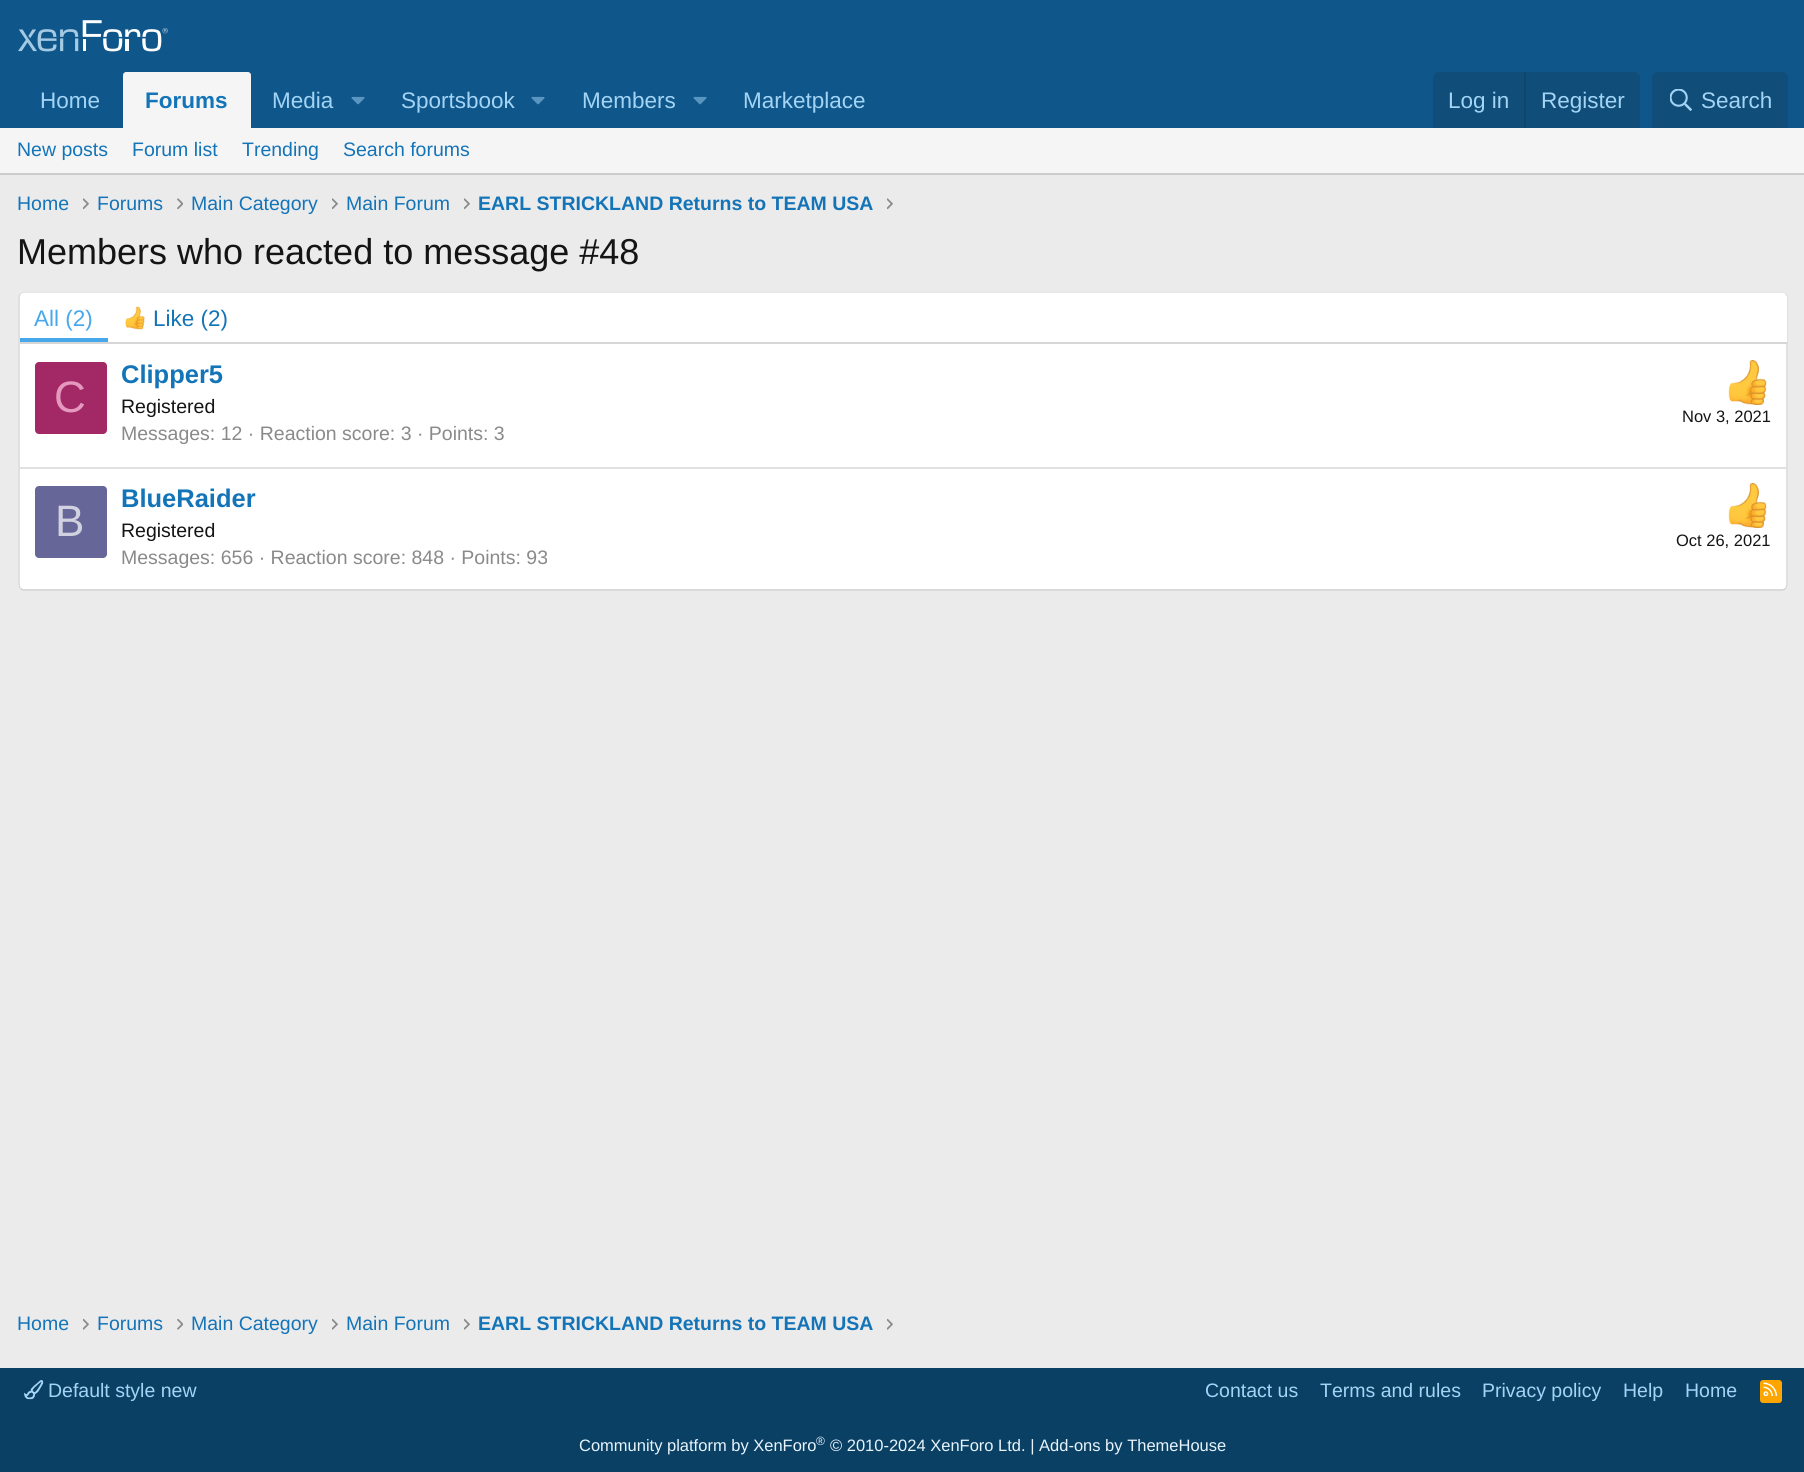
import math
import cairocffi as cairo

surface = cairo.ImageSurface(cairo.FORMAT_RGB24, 1804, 1472)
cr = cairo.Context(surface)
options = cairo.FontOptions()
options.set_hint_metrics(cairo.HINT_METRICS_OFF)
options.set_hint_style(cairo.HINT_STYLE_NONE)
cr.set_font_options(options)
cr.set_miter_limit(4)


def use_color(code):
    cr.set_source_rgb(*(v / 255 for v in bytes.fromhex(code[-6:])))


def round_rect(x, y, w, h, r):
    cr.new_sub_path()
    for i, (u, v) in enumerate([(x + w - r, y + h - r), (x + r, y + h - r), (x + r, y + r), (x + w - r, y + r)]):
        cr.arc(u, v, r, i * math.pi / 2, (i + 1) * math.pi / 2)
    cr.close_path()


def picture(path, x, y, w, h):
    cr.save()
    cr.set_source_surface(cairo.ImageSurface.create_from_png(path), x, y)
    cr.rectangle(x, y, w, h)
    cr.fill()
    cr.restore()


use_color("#ebebeb")
cr.paint()
use_color("#0f578a")
cr.rectangle(0, 0, 1804, 128)
cr.fill()
picture("img1.png", 18, 20, 150, 32)
cr.select_font_face("Liberation Sans")
cr.set_font_size(22.5)
use_color("#a3d4f5")
cr.move_to(40, 108)
cr.show_text("Home")
use_color("#f5f5f5")
cr.new_path()
cr.move_to(126, 72)
cr.line_to(248, 72)
cr.curve_to(249.5, 72, 251, 73.5, 251, 75)
cr.line_to(251, 128)
cr.line_to(123, 128)
cr.line_to(123, 75)
cr.curve_to(123, 73.5, 124.5, 72, 126, 72)
cr.close_path()
cr.fill()
cr.select_font_face("Liberation Sans", cairo.FONT_SLANT_NORMAL, cairo.FONT_WEIGHT_BOLD)
use_color("#1474b8")
cr.move_to(145, 108)
cr.show_text("Forums")
cr.select_font_face("Liberation Sans")
use_color("#a3d4f5")
cr.move_to(272, 108)
cr.show_text("Media")
picture("img2.png", 351, 96, 14, 9)
cr.move_to(401, 108)
cr.show_text("Sportsbook")
picture("img2.png", 531, 96, 14, 9)
cr.move_to(582, 108)
cr.show_text("Members")
picture("img2.png", 693, 96, 14, 9)
cr.move_to(743, 108)
cr.show_text("Marketplace")
use_color("#104d78")
cr.new_path()
cr.move_to(1439, 72)
cr.line_to(1634, 72)
cr.curve_to(1637.5, 72, 1640, 74.5, 1640, 78)
cr.line_to(1640, 128)
cr.line_to(1433, 128)
cr.line_to(1433, 78)
cr.curve_to(1433, 74.5, 1435.5, 72, 1439, 72)
cr.close_path()
cr.fill()
use_color("#a3d4f5")
cr.move_to(1448, 108)
cr.show_text("Log in")
use_color("#114469")
cr.rectangle(1524, 72, 2, 56)
cr.fill()
use_color("#a3d4f5")
cr.move_to(1541, 108)
cr.show_text("Register")
use_color("#104d78")
cr.new_path()
cr.move_to(1658, 72)
cr.line_to(1782, 72)
cr.curve_to(1785.5, 72, 1788, 74.5, 1788, 78)
cr.line_to(1788, 128)
cr.line_to(1652, 128)
cr.line_to(1652, 78)
cr.curve_to(1652, 74.5, 1654.5, 72, 1658, 72)
cr.close_path()
cr.fill()
picture("img3.png", 1670, 89, 22, 22)
use_color("#a3d4f5")
cr.move_to(1701, 108)
cr.show_text("Search")
use_color("#f5f5f5")
cr.rectangle(0, 128, 1804, 45)
cr.fill()
use_color("#cccccc")
cr.rectangle(0, 173, 1804, 2)
cr.fill()
cr.set_font_size(19.5)
use_color("#1474b8")
cr.move_to(17, 156)
cr.show_text("New posts")
cr.move_to(132, 156)
cr.show_text("Forum list")
cr.move_to(242, 156)
cr.show_text("Trending")
cr.move_to(343, 156)
cr.show_text("Search forums")
cr.move_to(17, 210)
cr.show_text("Home")
picture("img4.png", 83, 198, 6, 12)
cr.move_to(97, 210)
cr.show_text("Forums")
picture("img5.png", 177, 198, 6, 12)
cr.move_to(191, 210)
cr.show_text("Main Category")
picture("img4.png", 332, 198, 6, 12)
cr.move_to(346, 210)
cr.show_text("Main Forum")
picture("img4.png", 464, 198, 6, 12)
cr.select_font_face("Liberation Sans", cairo.FONT_SLANT_NORMAL, cairo.FONT_WEIGHT_BOLD)
cr.move_to(478, 210)
cr.show_text("EARL STRICKLAND Returns to TEAM USA")
picture("img4.png", 887, 198, 6, 12)
cr.select_font_face("Liberation Sans")
cr.set_font_size(36)
use_color("#141414")
cr.move_to(17, 264)
cr.show_text("Members who reacted to message #48")
use_color("#ffffff")
round_rect(18, 291, 1770, 300, 6)
cr.fill()
cr.new_path()
cr.move_to(20.5, 293.5)
cr.curve_to(21.5, 292.5, 22.5, 292, 24, 292)
cr.line_to(1782, 292)
cr.curve_to(1783.5, 292, 1784.5, 292.5, 1785.5, 293.5)
use_color("#e0e0e0")
cr.set_line_width(1.5)
cr.stroke()
cr.new_path()
cr.move_to(1785.5, 293.5)
cr.curve_to(1786.5, 294.5, 1787, 295.5, 1787, 297)
cr.line_to(1787, 585)
cr.curve_to(1787, 586.5, 1786.5, 587.5, 1785.5, 588.5)
use_color("#d6d6d6")
cr.stroke()
cr.new_path()
cr.move_to(1785.5, 588.5)
cr.curve_to(1784.5, 589.5, 1783.5, 590, 1782, 590)
cr.line_to(24, 590)
cr.curve_to(22.5, 590, 21.5, 589.5, 20.5, 588.5)
use_color("#cccccc")
cr.stroke()
cr.new_path()
cr.move_to(20.5, 588.5)
cr.curve_to(19.5, 587.5, 19, 586.5, 19, 585)
cr.line_to(19, 297)
cr.curve_to(19, 295.5, 19.5, 294.5, 20.5, 293.5)
use_color("#d6d6d6")
cr.stroke()
use_color("#ffffff")
cr.new_path()
cr.move_to(25, 293)
cr.line_to(1782, 293)
cr.curve_to(1785, 293, 1787, 295, 1787, 298)
cr.line_to(1787, 344)
cr.line_to(20, 344)
cr.line_to(20, 298)
cr.curve_to(20, 295, 22, 293, 25, 293)
cr.close_path()
cr.fill()
use_color("#d6d6d6")
cr.rectangle(20, 342, 1767, 2)
cr.fill()
use_color("#47a7eb")
cr.rectangle(20, 338, 88, 4)
cr.fill()
cr.set_font_size(22.5)
cr.move_to(34, 326)
cr.show_text("All (2)")
picture("img6.png", 125, 306, 20, 24)
use_color("#1474b8")
cr.move_to(153, 326)
cr.show_text("Like (2)")
use_color("#a32966")
round_rect(35, 362, 72, 72, 4)
cr.fill()
cr.set_font_size(44)
use_color("#e699bf")
cr.move_to(54, 412)
cr.show_text("C")
cr.select_font_face("Liberation Sans", cairo.FONT_SLANT_NORMAL, cairo.FONT_WEIGHT_BOLD)
cr.set_font_size(25.5)
use_color("#1474b8")
cr.move_to(121, 383)
cr.show_text("Clipper5")
cr.select_font_face("Liberation Sans")
cr.set_font_size(19.5)
use_color("#141414")
cr.move_to(121, 413)
cr.show_text("Registered")
picture("img7.png", 1728, 360, 39, 45)
cr.set_font_size(16.5)
cr.move_to(1682, 422)
cr.show_text("Nov 3, 2021")
cr.set_font_size(19.5)
use_color("#8a8a8a")
cr.move_to(121, 440)
cr.show_text("Messages: 12 · Reaction score: 3 · Points: 3")
use_color("#e0e0e0")
cr.rectangle(20, 467, 1767, 2)
cr.fill()
use_color("#666699")
round_rect(35, 486, 72, 72, 4)
cr.fill()
cr.set_font_size(44)
use_color("#d1d1e0")
cr.move_to(55, 536)
cr.show_text("B")
cr.select_font_face("Liberation Sans", cairo.FONT_SLANT_NORMAL, cairo.FONT_WEIGHT_BOLD)
cr.set_font_size(25.5)
use_color("#1474b8")
cr.move_to(121, 507)
cr.show_text("BlueRaider")
cr.select_font_face("Liberation Sans")
cr.set_font_size(19.5)
use_color("#141414")
cr.move_to(121, 537)
cr.show_text("Registered")
picture("img7.png", 1728, 483, 39, 45)
cr.set_font_size(16.5)
cr.move_to(1676, 546)
cr.show_text("Oct 26, 2021")
cr.set_font_size(19.5)
use_color("#8a8a8a")
cr.move_to(121, 564)
cr.show_text("Messages: 656 · Reaction score: 848 · Points: 93")
use_color("#1474b8")
cr.move_to(17, 1330)
cr.show_text("Home")
picture("img8.png", 83, 1318, 6, 12)
cr.move_to(97, 1330)
cr.show_text("Forums")
picture("img9.png", 177, 1318, 6, 12)
cr.move_to(191, 1330)
cr.show_text("Main Category")
picture("img8.png", 332, 1318, 6, 12)
cr.move_to(346, 1330)
cr.show_text("Main Forum")
picture("img8.png", 464, 1318, 6, 12)
cr.select_font_face("Liberation Sans", cairo.FONT_SLANT_NORMAL, cairo.FONT_WEIGHT_BOLD)
cr.move_to(478, 1330)
cr.show_text("EARL STRICKLAND Returns to TEAM USA")
picture("img8.png", 887, 1318, 6, 12)
use_color("#0b4065")
cr.rectangle(0, 1368, 1804, 104)
cr.fill()
picture("img10.png", 24, 1380, 20, 20)
cr.select_font_face("Liberation Sans")
use_color("#a3d4f5")
cr.move_to(48, 1397)
cr.show_text("Default style new")
cr.move_to(1205, 1397)
cr.show_text("Contact us")
cr.move_to(1320, 1397)
cr.show_text("Terms and rules")
cr.move_to(1482, 1397)
cr.show_text("Privacy policy")
cr.move_to(1623, 1397)
cr.show_text("Help")
cr.move_to(1685, 1397)
cr.show_text("Home")
use_color("#ffa500")
round_rect(1760, 1380, 22, 23, 3)
cr.fill()
picture("img11.png", 1763, 1382, 15, 14)
cr.set_font_size(16.5)
use_color("#e8f4fc")
cr.move_to(579, 1451)
cr.show_text("Community platform by XenForo")
cr.set_font_size(12)
cr.move_to(816, 1445)
cr.show_text("®")
cr.set_font_size(16.5)
cr.move_to(830, 1451)
cr.show_text("© 2010-2024 XenForo Ltd. | Add-ons by ThemeHouse")
surface.write_to_png("result.png")
